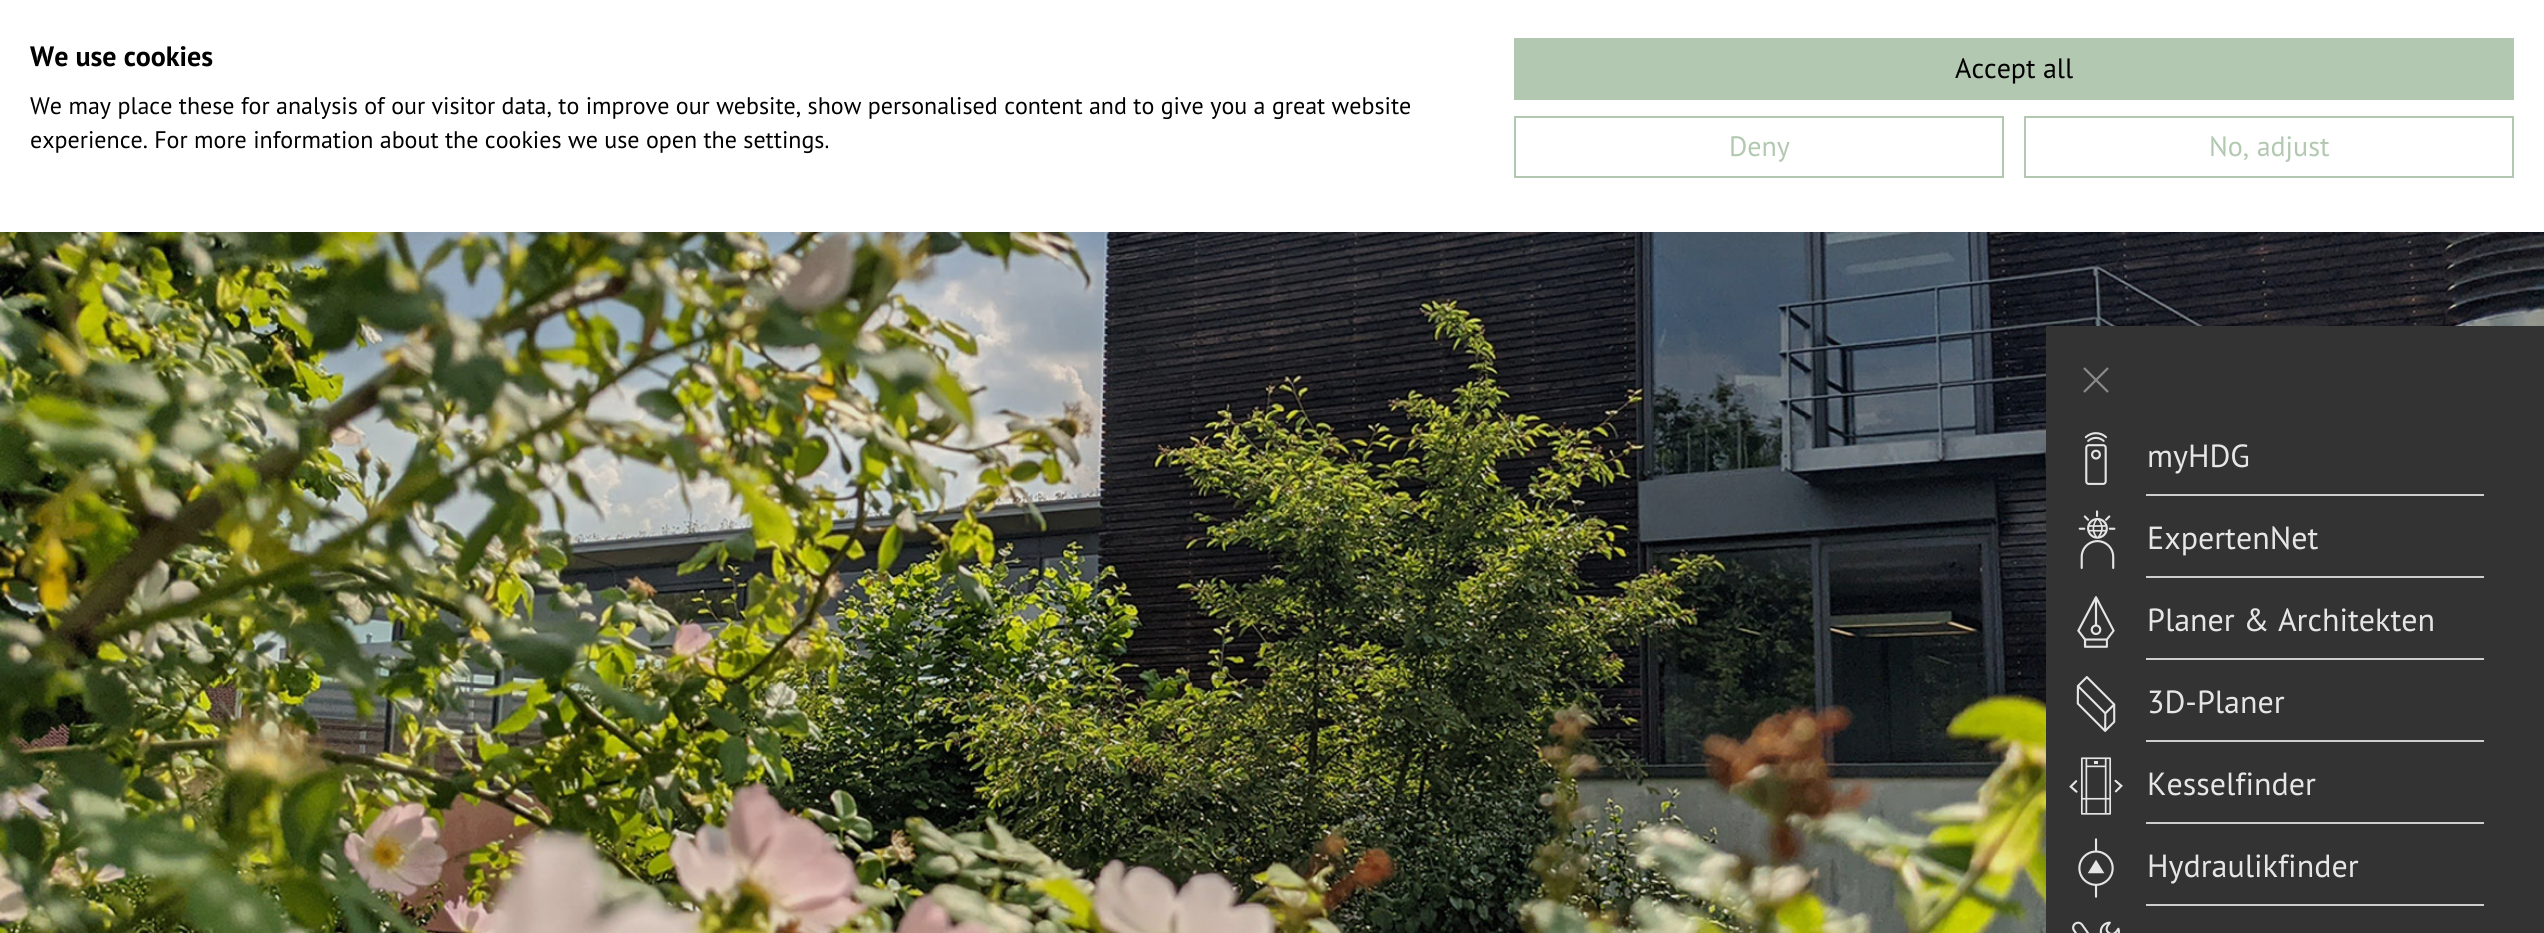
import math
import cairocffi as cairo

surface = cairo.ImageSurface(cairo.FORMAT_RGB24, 2544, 933)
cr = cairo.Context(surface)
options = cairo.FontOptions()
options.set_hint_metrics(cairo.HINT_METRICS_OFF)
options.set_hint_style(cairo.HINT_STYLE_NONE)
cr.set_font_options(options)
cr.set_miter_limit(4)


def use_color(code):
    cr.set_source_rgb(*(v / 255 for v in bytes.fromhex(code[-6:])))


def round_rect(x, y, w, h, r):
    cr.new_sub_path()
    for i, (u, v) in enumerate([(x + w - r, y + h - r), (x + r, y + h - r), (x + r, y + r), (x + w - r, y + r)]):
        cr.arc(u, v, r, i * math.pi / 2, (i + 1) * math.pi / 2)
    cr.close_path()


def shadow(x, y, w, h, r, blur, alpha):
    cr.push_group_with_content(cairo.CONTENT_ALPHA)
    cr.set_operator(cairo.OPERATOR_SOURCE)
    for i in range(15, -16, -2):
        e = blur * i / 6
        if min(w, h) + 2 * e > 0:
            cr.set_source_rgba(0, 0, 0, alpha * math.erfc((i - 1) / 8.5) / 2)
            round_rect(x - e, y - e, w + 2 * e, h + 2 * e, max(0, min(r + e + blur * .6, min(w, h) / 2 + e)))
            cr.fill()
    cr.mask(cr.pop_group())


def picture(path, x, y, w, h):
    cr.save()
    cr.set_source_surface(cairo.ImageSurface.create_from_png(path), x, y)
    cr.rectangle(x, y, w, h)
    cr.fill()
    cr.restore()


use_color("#ffffff")
cr.paint()
picture("img1.png", 0, 232, 2544, 701)
use_color("#000000")
shadow(0, 0, 2544, 232, 0, 24, 0.1)
use_color("#ffffff")
cr.rectangle(0, 0, 2544, 232)
cr.fill()
cr.select_font_face("PT Sans", cairo.FONT_SLANT_NORMAL, cairo.FONT_WEIGHT_BOLD)
cr.set_font_size(28)
use_color("#000000")
cr.move_to(30, 66)
cr.show_text("We use cookies")
cr.select_font_face("PT Sans")
cr.set_font_size(24)
cr.move_to(30, 114)
cr.show_text("We may place these for analysis of our visitor data, to improve our website, show personalised content and to give you a great website")
cr.move_to(30, 148)
cr.show_text("experience. For more information about the cookies we use open the settings.")
use_color("#b2c8b0")
cr.rectangle(1514, 38, 1000, 62)
cr.fill()
cr.set_font_size(28)
use_color("#000000")
cr.move_to(1955, 78)
cr.show_text("Accept all")
cr.rectangle(1515, 117, 488, 60)
use_color("#b2c8b0")
cr.stroke()
cr.move_to(1729, 156)
cr.show_text("Deny")
cr.rectangle(2025, 117, 488, 60)
cr.stroke()
cr.move_to(2209, 156)
cr.show_text("No, adjust")
use_color("#333333")
cr.rectangle(2046, 326, 498, 607)
cr.fill()
cr.new_path()
cr.move_to(2084, 368)
cr.line_to(2108, 392)
cr.move_to(2108, 368)
cr.line_to(2084, 392)
use_color("#8a8a8a")
cr.set_line_width(2.2)
cr.stroke()
picture("img2.png", 2084, 432, 23, 53)
cr.set_font_size(32)
use_color("#e6e6e6")
cr.move_to(2147, 467)
cr.show_text("myHDG")
use_color("#cecece")
cr.rectangle(2146, 494, 338, 2)
cr.fill()
picture("img3.png", 2078, 510, 38, 59)
use_color("#e6e6e6")
cr.move_to(2147, 549)
cr.show_text("ExpertenNet")
use_color("#cecece")
cr.rectangle(2146, 576, 338, 2)
cr.fill()
picture("img4.png", 2077, 596, 38, 52)
use_color("#e6e6e6")
cr.move_to(2147, 631)
cr.show_text("Planer & Architekten")
use_color("#cecece")
cr.rectangle(2146, 658, 338, 2)
cr.fill()
picture("img5.png", 2076, 676, 40, 56)
use_color("#e6e6e6")
cr.move_to(2147, 713)
cr.show_text("3D-Planer")
use_color("#cecece")
cr.rectangle(2146, 740, 338, 2)
cr.fill()
picture("img6.png", 2069, 757, 54, 58)
use_color("#e6e6e6")
cr.move_to(2147, 795)
cr.show_text("Kesselfinder")
use_color("#cecece")
cr.rectangle(2146, 822, 338, 2)
cr.fill()
picture("img7.png", 2078, 838, 36, 60)
use_color("#e6e6e6")
cr.move_to(2147, 877)
cr.show_text("Hydraulikfinder")
use_color("#cecece")
cr.rectangle(2146, 904, 338, 2)
cr.fill()
picture("img8.png", 2072, 921, 48, 12)
surface.write_to_png("result.png")
